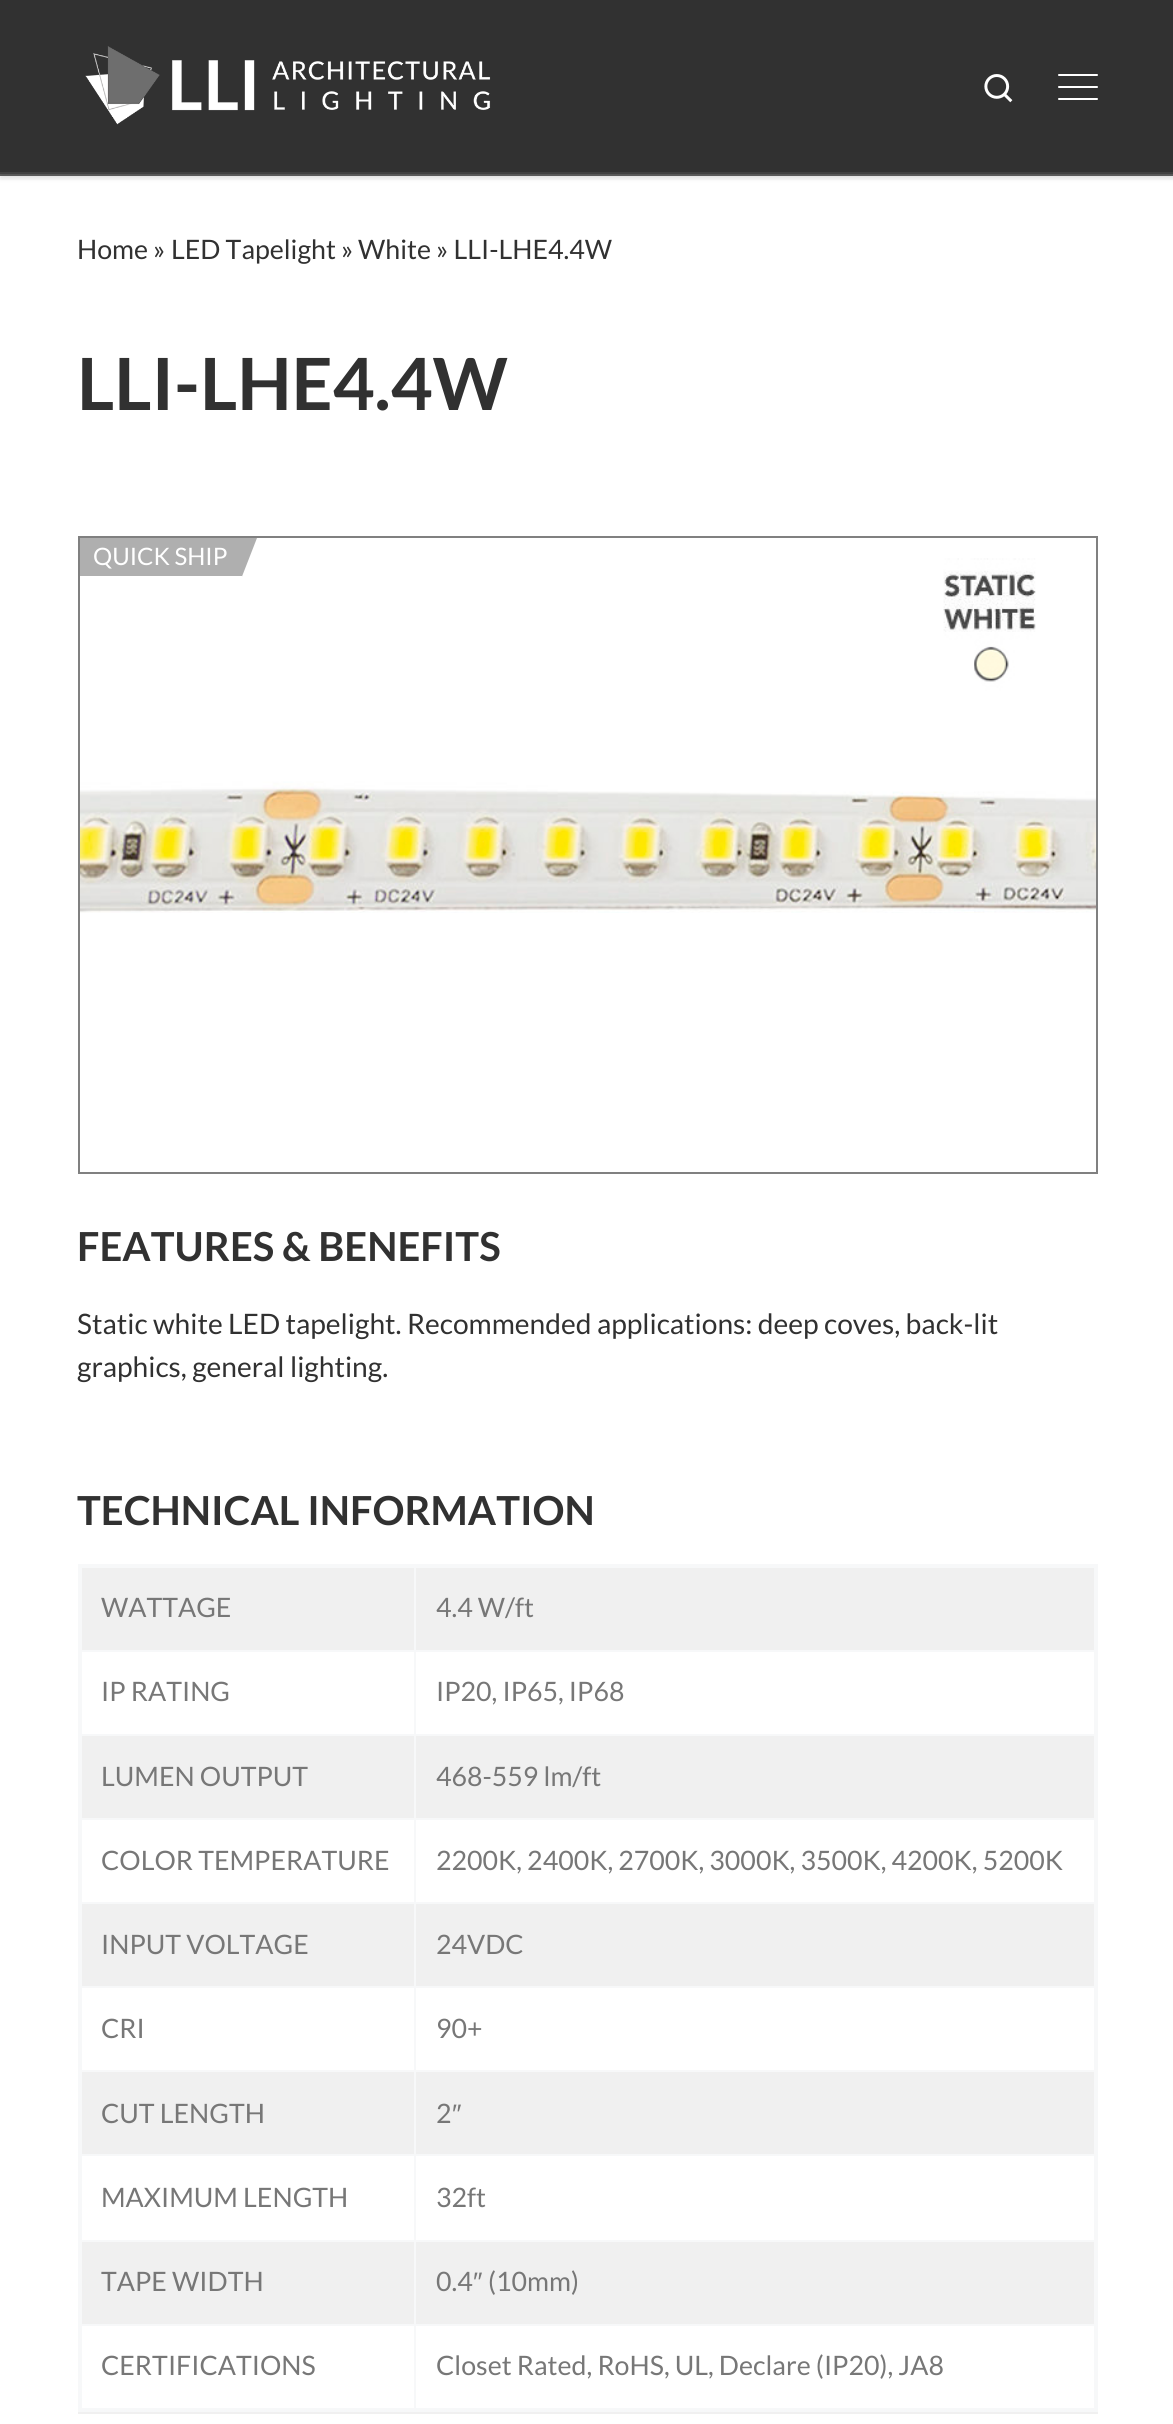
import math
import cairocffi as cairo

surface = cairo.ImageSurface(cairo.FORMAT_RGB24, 1173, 2424)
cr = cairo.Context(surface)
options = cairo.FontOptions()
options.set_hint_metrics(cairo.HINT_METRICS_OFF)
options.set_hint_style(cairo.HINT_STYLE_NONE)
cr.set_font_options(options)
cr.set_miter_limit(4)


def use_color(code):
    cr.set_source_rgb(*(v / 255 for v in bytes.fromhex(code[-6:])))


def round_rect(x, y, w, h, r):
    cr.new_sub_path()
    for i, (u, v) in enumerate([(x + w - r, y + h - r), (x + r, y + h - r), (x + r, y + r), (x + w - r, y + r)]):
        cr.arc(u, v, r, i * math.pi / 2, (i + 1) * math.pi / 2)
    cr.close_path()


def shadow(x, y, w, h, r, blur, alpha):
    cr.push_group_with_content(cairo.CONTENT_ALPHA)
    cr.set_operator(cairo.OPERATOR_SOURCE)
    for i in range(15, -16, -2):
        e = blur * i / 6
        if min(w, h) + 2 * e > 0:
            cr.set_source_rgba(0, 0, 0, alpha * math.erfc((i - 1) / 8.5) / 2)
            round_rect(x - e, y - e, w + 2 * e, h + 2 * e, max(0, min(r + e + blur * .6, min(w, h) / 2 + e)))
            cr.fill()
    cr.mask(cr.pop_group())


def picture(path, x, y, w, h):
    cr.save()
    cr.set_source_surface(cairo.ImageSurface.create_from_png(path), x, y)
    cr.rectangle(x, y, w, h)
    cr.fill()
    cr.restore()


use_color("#ffffff")
cr.paint()
use_color("#666666")
shadow(0, 4, 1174, 176, 0, 2, 0.08)
use_color("#313131")
cr.rectangle(0, 0, 1173, 172)
cr.fill()
use_color("#606060")
cr.rectangle(0, 174, 1173, 2)
cr.fill()
cr.save()
cr.rectangle(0, 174, 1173, 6)
cr.clip()
use_color("#000000")
shadow(0, 0, 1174, 174, 0, 5, 0.2)
cr.restore()
picture("img1.png", 85, 46, 406, 79)
picture("img2.png", 984, 74, 29, 29)
use_color("#ffffff")
round_rect(1058, 74, 40, 2, 1)
cr.fill()
round_rect(1058, 86, 40, 2, 1)
cr.fill()
round_rect(1058, 98, 40, 2, 1)
cr.fill()
use_color("#404040")
cr.rectangle(0, 172, 1173, 2)
cr.fill()
cr.select_font_face("Lato")
cr.set_font_size(26.75)
use_color("#313131")
cr.move_to(77, 259)
cr.show_text("Home")
cr.move_to(153, 259)
cr.show_text("»")
cr.move_to(171, 259)
cr.show_text("LED Tapelight")
cr.move_to(341, 259)
cr.show_text("»")
cr.move_to(358, 259)
cr.show_text("White")
cr.move_to(436, 259)
cr.show_text("» LLI-LHE4.4W")
cr.select_font_face("Lato", cairo.FONT_SLANT_NORMAL, cairo.FONT_WEIGHT_BOLD)
cr.set_font_size(72)
cr.move_to(77, 410)
cr.show_text("LLI-LHE4.4W")
cr.rectangle(79, 537, 1018, 636)
use_color("#808080")
cr.stroke()
picture("img3.png", 80, 558, 1016, 355)
use_color("#afafaf")
cr.rectangle(80, 538, 162, 38)
cr.fill()
cr.select_font_face("Lato")
cr.set_font_size(24)
use_color("#ffffff")
cr.move_to(93, 565)
cr.show_text("QUICK SHIP")
use_color("#afafaf")
cr.new_path()
cr.move_to(242, 538)
cr.line_to(257, 538)
cr.line_to(242, 576.5)
cr.close_path()
cr.fill()
cr.select_font_face("Lato", cairo.FONT_SLANT_NORMAL, cairo.FONT_WEIGHT_BOLD)
cr.set_font_size(40)
use_color("#313131")
cr.move_to(77, 1261)
cr.show_text("FEATURES & BENEFITS")
cr.select_font_face("Lato")
cr.set_font_size(28.15)
cr.move_to(77, 1334)
cr.show_text("Static white LED tapelight. Recommended applications: deep coves, back-lit")
cr.move_to(77, 1377)
cr.show_text("graphics, general lighting.")
cr.select_font_face("Lato", cairo.FONT_SLANT_NORMAL, cairo.FONT_WEIGHT_BOLD)
cr.set_font_size(40)
cr.move_to(77, 1525)
cr.show_text("TECHNICAL INFORMATION")
use_color("#f0f0f0")
cr.rectangle(78, 2412, 1020, 2)
cr.fill()
cr.rectangle(82, 1568, 1012, 82)
cr.fill()
use_color("#f7f8f9")
cr.rectangle(414, 1650, 682, 2)
cr.fill()
cr.rectangle(414, 1734, 682, 2)
cr.fill()
use_color("#f0f0f0")
cr.rectangle(82, 1736, 1012, 82)
cr.fill()
use_color("#f7f8f9")
cr.rectangle(414, 1818, 682, 2)
cr.fill()
cr.rectangle(414, 1902, 682, 2)
cr.fill()
use_color("#f0f0f0")
cr.rectangle(82, 1904, 1012, 82)
cr.fill()
use_color("#f7f8f9")
cr.rectangle(414, 1986, 682, 2)
cr.fill()
cr.rectangle(414, 2070, 682, 2)
cr.fill()
use_color("#f0f0f0")
cr.rectangle(82, 2072, 1012, 82)
cr.fill()
use_color("#f7f8f9")
cr.rectangle(414, 2154, 682, 2)
cr.fill()
cr.rectangle(414, 2240, 682, 2)
cr.fill()
use_color("#f0f0f0")
cr.rectangle(82, 2242, 1012, 82)
cr.fill()
use_color("#f7f8f9")
cr.rectangle(414, 2324, 682, 2)
cr.fill()
cr.rectangle(414, 2324, 2, 86)
cr.fill()
cr.rectangle(78, 2324, 338, 2)
cr.fill()
cr.rectangle(414, 2240, 2, 86)
cr.fill()
cr.rectangle(78, 2240, 338, 2)
cr.fill()
cr.rectangle(414, 2154, 2, 88)
cr.fill()
cr.rectangle(78, 2154, 338, 2)
cr.fill()
cr.rectangle(414, 2070, 2, 86)
cr.fill()
cr.rectangle(78, 2070, 338, 2)
cr.fill()
cr.rectangle(414, 1986, 2, 86)
cr.fill()
cr.rectangle(78, 1986, 338, 2)
cr.fill()
cr.rectangle(414, 1902, 2, 86)
cr.fill()
cr.rectangle(78, 1902, 338, 2)
cr.fill()
cr.rectangle(414, 1818, 2, 86)
cr.fill()
cr.rectangle(78, 1818, 338, 2)
cr.fill()
cr.rectangle(414, 1734, 2, 86)
cr.fill()
cr.rectangle(78, 1734, 338, 2)
cr.fill()
cr.rectangle(414, 1650, 2, 86)
cr.fill()
cr.rectangle(78, 1650, 338, 2)
cr.fill()
cr.rectangle(414, 1564, 2, 88)
cr.fill()
cr.rectangle(78, 1564, 1020, 4)
cr.fill()
cr.rectangle(1094, 1564, 4, 848)
cr.fill()
cr.rectangle(78, 2408, 1020, 4)
cr.fill()
cr.rectangle(78, 1564, 4, 848)
cr.fill()
cr.select_font_face("Lato")
cr.set_font_size(26.75)
use_color("#777777")
cr.move_to(101, 1617)
cr.show_text("WATTAGE")
cr.move_to(436, 1617)
cr.show_text("4.4 W/ft")
cr.move_to(101, 1701)
cr.show_text("IP RATING")
cr.move_to(436, 1701)
cr.show_text("IP20, IP65, IP68")
cr.move_to(101, 1786)
cr.show_text("LUMEN OUTPUT")
cr.move_to(436, 1786)
cr.show_text("468-559 lm/ft")
cr.move_to(101, 1870)
cr.show_text("COLOR TEMPERATURE")
cr.move_to(436, 1870)
cr.show_text("2200K, 2400K, 2700K, 3000K, 3500K, 4200K, 5200K")
cr.move_to(101, 1954)
cr.show_text("INPUT VOLTAGE")
cr.move_to(436, 1954)
cr.show_text("24VDC")
cr.move_to(101, 2038)
cr.show_text("CRI")
cr.move_to(436, 2038)
cr.show_text("90+")
cr.move_to(101, 2123)
cr.show_text("CUT LENGTH")
cr.move_to(436, 2123)
cr.show_text("2")
cr.select_font_face("Liberation Sans")
cr.move_to(452, 2123)
cr.show_text("″")
cr.select_font_face("Lato")
cr.move_to(101, 2207)
cr.show_text("MAXIMUM LENGTH")
cr.move_to(436, 2207)
cr.show_text("32ft")
cr.move_to(101, 2291)
cr.show_text("TAPE WIDTH")
cr.move_to(436, 2291)
cr.show_text("0.4")
cr.select_font_face("Liberation Sans")
cr.move_to(473, 2291)
cr.show_text("″")
cr.select_font_face("Lato")
cr.move_to(488, 2291)
cr.show_text("(10mm)")
cr.move_to(101, 2375)
cr.show_text("CERTIFICATIONS")
cr.move_to(436, 2375)
cr.show_text("Closet Rated, RoHS, UL, Declare (IP20), JA8")
surface.write_to_png("result.png")
